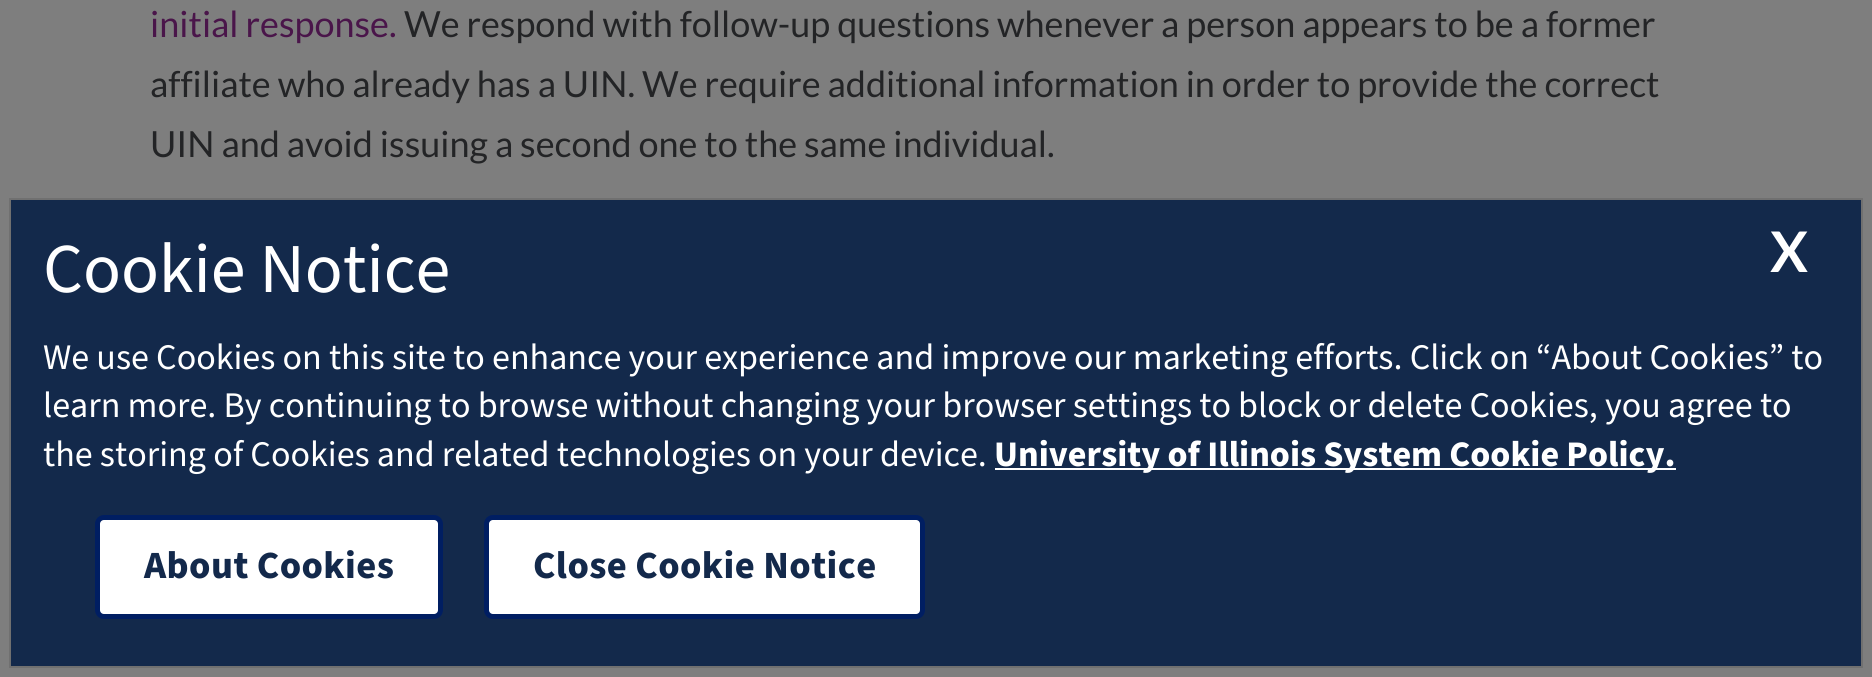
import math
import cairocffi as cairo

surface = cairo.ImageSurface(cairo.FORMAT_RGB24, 1872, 677)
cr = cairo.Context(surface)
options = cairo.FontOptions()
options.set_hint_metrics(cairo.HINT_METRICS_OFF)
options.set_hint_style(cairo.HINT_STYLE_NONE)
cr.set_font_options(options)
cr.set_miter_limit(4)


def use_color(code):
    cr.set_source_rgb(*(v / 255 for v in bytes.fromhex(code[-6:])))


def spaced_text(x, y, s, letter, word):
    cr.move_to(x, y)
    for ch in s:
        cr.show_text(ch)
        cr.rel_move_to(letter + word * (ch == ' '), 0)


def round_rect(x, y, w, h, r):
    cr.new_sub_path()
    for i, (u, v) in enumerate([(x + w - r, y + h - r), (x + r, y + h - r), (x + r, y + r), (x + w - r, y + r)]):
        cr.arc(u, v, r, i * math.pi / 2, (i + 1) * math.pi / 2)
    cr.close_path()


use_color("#7e7e7e")
cr.paint()
cr.select_font_face("Lato")
cr.set_font_size(36)
use_color("#4a154a")
cr.move_to(150, 37)
cr.show_text("initial response.")
use_color("#232426")
cr.move_to(404, 37)
cr.show_text("We respond with follow-up questions whenever a person appears to be a former")
cr.move_to(150, 97)
cr.show_text("affiliate who already has a UIN. We require additional information in order to provide the correct")
cr.move_to(150, 157)
cr.show_text("UIN and avoid issuing a second one to the same individual.")
use_color("#13294b")
cr.rectangle(10, 199, 1852, 468)
cr.fill_preserve()
use_color("#707070")
cr.stroke()
cr.select_font_face("Source Sans Pro")
cr.set_font_size(70)
use_color("#ffffff")
cr.move_to(43, 292)
cr.show_text("Cookie Notice")
cr.select_font_face("Lato", cairo.FONT_SLANT_NORMAL, cairo.FONT_WEIGHT_BOLD)
cr.set_font_size(56)
cr.move_to(1770, 272)
cr.show_text("X")
cr.select_font_face("Source Sans Pro")
cr.set_font_size(36)
cr.move_to(43, 369)
cr.show_text("We use Cookies on this site to enhance your experience and improve our marketing efforts. Click on “About Cookies” to")
cr.move_to(43, 417)
cr.show_text("learn more. By continuing to browse without changing your browser settings to block or delete Cookies, you agree to")
cr.move_to(43, 466)
cr.show_text("the storing of Cookies and related technologies on your device.")
cr.rectangle(995, 468, 681, 2)
cr.fill()
cr.select_font_face("Source Sans Pro", cairo.FONT_SLANT_NORMAL, cairo.FONT_WEIGHT_BOLD)
cr.move_to(994, 466)
cr.show_text("University of Illinois System Cookie Policy.")
round_rect(97.5, 517.5, 343, 99, 6.5)
cr.fill_preserve()
use_color("#001e62")
cr.set_line_width(5)
cr.stroke()
cr.set_font_size(38.5)
use_color("#13294b")
spaced_text(144, 578, "About Cookies", 0.4, 0)
use_color("#ffffff")
round_rect(486.5, 517.5, 436, 99, 6.5)
cr.fill_preserve()
use_color("#001e62")
cr.stroke()
use_color("#13294b")
spaced_text(533, 578, "Close Cookie Notice", 0.4, 0)
surface.write_to_png("result.png")
